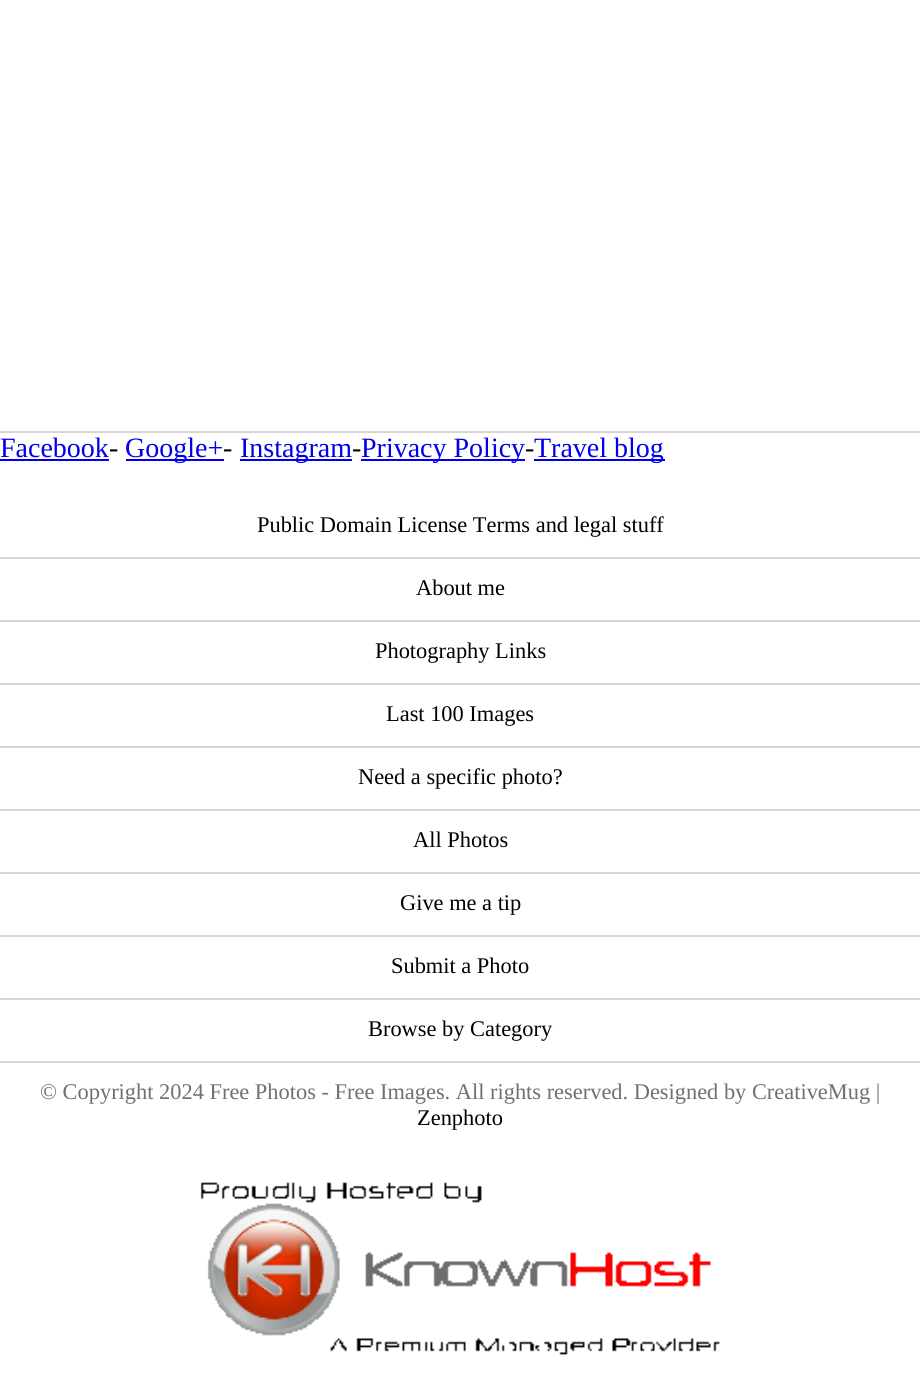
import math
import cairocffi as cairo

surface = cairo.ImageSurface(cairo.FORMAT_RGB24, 920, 1391)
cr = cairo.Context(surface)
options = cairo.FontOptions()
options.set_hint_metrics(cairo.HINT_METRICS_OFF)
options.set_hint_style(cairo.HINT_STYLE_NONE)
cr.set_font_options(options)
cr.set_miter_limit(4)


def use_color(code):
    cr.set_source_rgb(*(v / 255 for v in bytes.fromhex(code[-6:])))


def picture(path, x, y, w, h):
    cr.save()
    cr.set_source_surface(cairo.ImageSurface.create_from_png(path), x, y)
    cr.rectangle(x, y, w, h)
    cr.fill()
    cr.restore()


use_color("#ffffff")
cr.paint()
use_color("#d5d5d5")
cr.rectangle(0, 431, 920, 2)
cr.fill()
cr.select_font_face("Liberation Serif")
cr.set_font_size(28)
use_color("#0000ee")
cr.move_to(0, 457)
cr.show_text("Facebook")
cr.rectangle(0, 459, 109, 2)
cr.fill()
use_color("#000000")
cr.move_to(109, 457)
cr.show_text("-")
use_color("#0000ee")
cr.rectangle(126, 459, 98, 2)
cr.fill()
cr.move_to(125, 457)
cr.show_text("Google+")
use_color("#000000")
cr.move_to(223, 457)
cr.show_text("-")
use_color("#0000ee")
cr.rectangle(240, 459, 112, 2)
cr.fill()
cr.move_to(240, 457)
cr.show_text("Instagram")
use_color("#000000")
cr.move_to(352, 457)
cr.show_text("-")
use_color("#0000ee")
cr.rectangle(361, 459, 164, 2)
cr.fill()
cr.move_to(361, 457)
cr.show_text("Privacy Policy")
use_color("#000000")
cr.move_to(525, 457)
cr.show_text("-")
use_color("#0000ee")
cr.rectangle(534, 459, 131, 2)
cr.fill()
cr.move_to(534, 457)
cr.show_text("Travel blog")
use_color("#d5d5d5")
cr.rectangle(0, 557, 920, 2)
cr.fill()
cr.set_font_size(22.4)
use_color("#000000")
cr.move_to(257, 532)
cr.show_text("Public Domain License Terms and legal stuff")
use_color("#d5d5d5")
cr.rectangle(0, 620, 920, 2)
cr.fill()
use_color("#000000")
cr.move_to(416, 595)
cr.show_text("About me")
use_color("#d5d5d5")
cr.rectangle(0, 683, 920, 2)
cr.fill()
use_color("#000000")
cr.move_to(375, 658)
cr.show_text("Photography Links")
use_color("#d5d5d5")
cr.rectangle(0, 746, 920, 2)
cr.fill()
use_color("#000000")
cr.move_to(386, 721)
cr.show_text("Last 100 Images")
use_color("#d5d5d5")
cr.rectangle(0, 809, 920, 2)
cr.fill()
use_color("#000000")
cr.move_to(358, 784)
cr.show_text("Need a specific photo?")
use_color("#d5d5d5")
cr.rectangle(0, 872, 920, 2)
cr.fill()
use_color("#000000")
cr.move_to(413, 847)
cr.show_text("All Photos")
use_color("#d5d5d5")
cr.rectangle(0, 935, 920, 2)
cr.fill()
use_color("#000000")
cr.move_to(400, 910)
cr.show_text("Give me a tip")
use_color("#d5d5d5")
cr.rectangle(0, 998, 920, 2)
cr.fill()
use_color("#000000")
cr.move_to(391, 973)
cr.show_text("Submit a Photo")
use_color("#d5d5d5")
cr.rectangle(0, 1061, 920, 2)
cr.fill()
use_color("#000000")
cr.move_to(368, 1036)
cr.show_text("Browse by Category")
use_color("#707070")
cr.move_to(40, 1099)
cr.show_text("© Copyright 2024 Free Photos - Free Images. All rights reserved. Designed by CreativeMug |")
use_color("#000000")
cr.move_to(417, 1125)
cr.show_text("Zenphoto")
picture("img1.png", 200, 1182, 520, 173)
surface.write_to_png("result.png")
